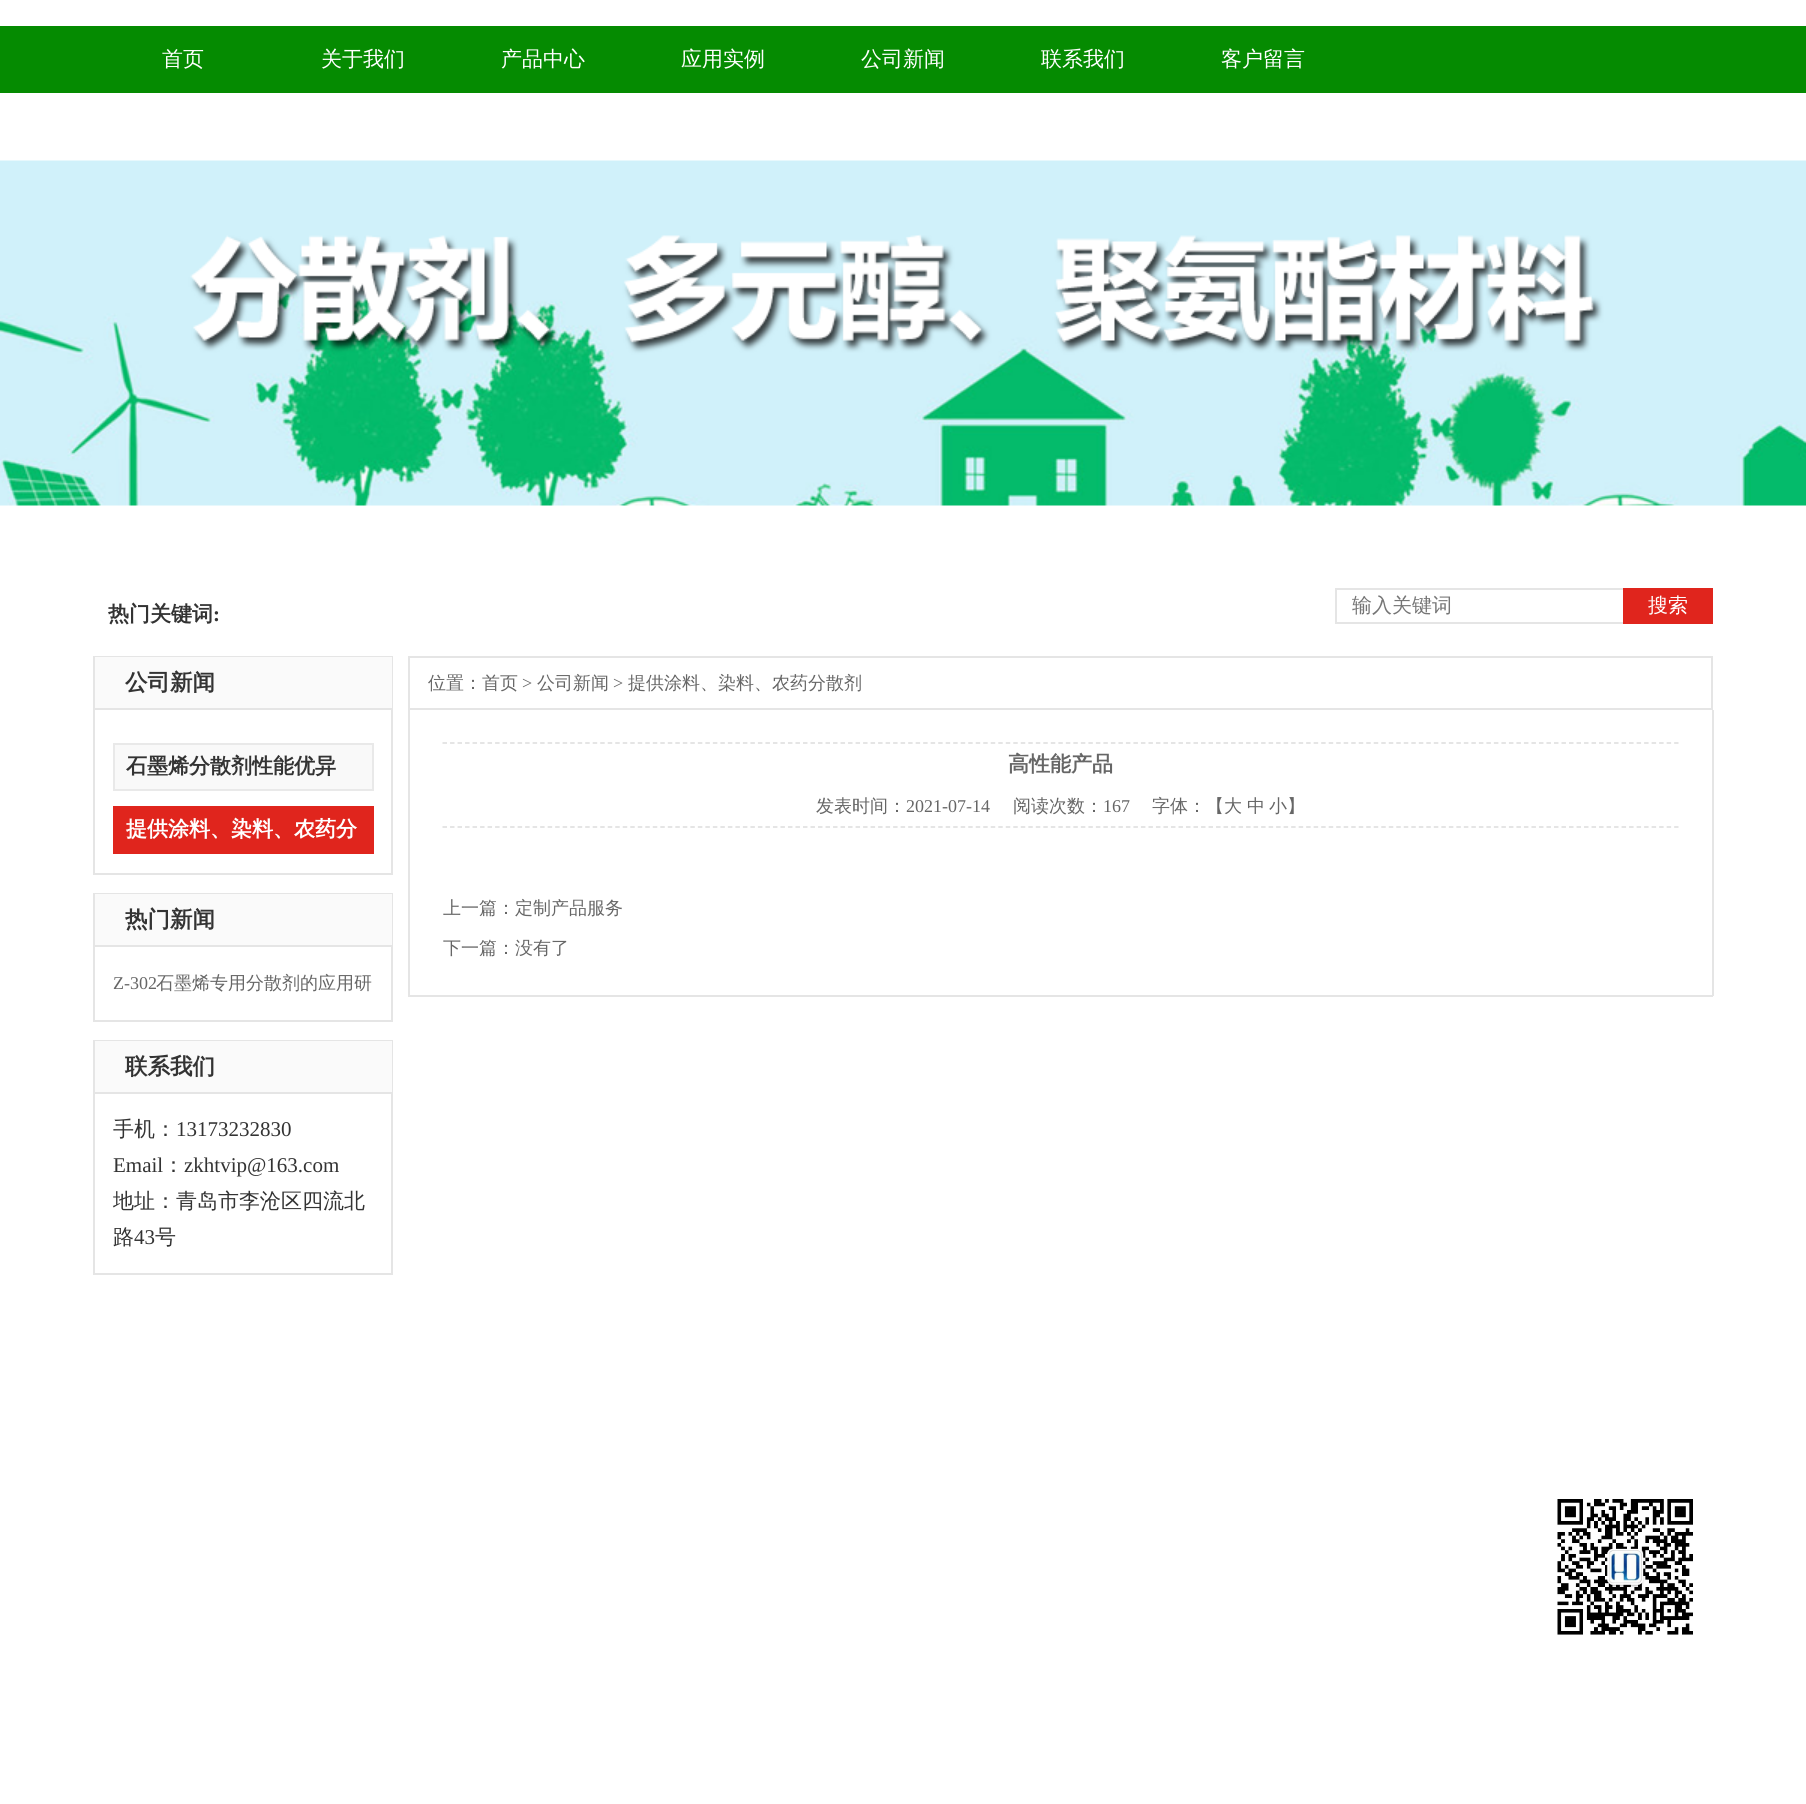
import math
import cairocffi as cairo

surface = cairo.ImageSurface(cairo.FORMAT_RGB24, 1806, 1804)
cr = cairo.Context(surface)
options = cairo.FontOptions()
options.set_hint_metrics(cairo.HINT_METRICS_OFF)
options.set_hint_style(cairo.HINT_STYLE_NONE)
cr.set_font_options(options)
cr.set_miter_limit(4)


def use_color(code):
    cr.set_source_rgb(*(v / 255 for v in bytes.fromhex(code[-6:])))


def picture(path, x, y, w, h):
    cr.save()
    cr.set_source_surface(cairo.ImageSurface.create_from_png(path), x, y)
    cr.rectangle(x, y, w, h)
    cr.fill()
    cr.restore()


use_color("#ffffff")
cr.paint()
use_color("#058b01")
cr.rectangle(0, 26, 1806, 67)
cr.fill()
cr.select_font_face("WenQuanYi Zen Hei Medium")
cr.set_font_size(21)
use_color("#ffffff")
cr.move_to(162, 66)
cr.show_text("首页")
cr.move_to(321, 66)
cr.show_text("关于我们")
cr.move_to(501, 66)
cr.show_text("产品中心")
cr.move_to(681, 66)
cr.show_text("应用实例")
cr.move_to(861, 66)
cr.show_text("公司新闻")
cr.move_to(1041, 66)
cr.show_text("联系我们")
cr.move_to(1221, 66)
cr.show_text("客户留言")
picture("img1.png", 0, 160, 1806, 346)
cr.select_font_face("WenQuanYi Zen Hei", cairo.FONT_SLANT_NORMAL, cairo.FONT_WEIGHT_BOLD)
use_color("#333333")
cr.move_to(108, 621)
cr.show_text("热门关键词")
cr.select_font_face("Liberation Serif", cairo.FONT_SLANT_NORMAL, cairo.FONT_WEIGHT_BOLD)
cr.move_to(213, 621)
cr.show_text(":")
cr.rectangle(1336, 589, 301, 34)
use_color("#e5e5e5")
cr.stroke()
cr.select_font_face("WenQuanYi Zen Hei Medium")
cr.set_font_size(20)
use_color("#757575")
cr.move_to(1352, 612)
cr.show_text("输入关键词")
use_color("#e0251d")
cr.rectangle(1623, 588, 90, 36)
cr.fill()
use_color("#ffffff")
cr.move_to(1648, 612)
cr.show_text("搜索")
cr.rectangle(94, 657, 298, 217)
use_color("#e5e5e5")
cr.stroke()
use_color("#fafafa")
cr.rectangle(95, 657, 297, 51)
cr.fill()
use_color("#e5e5e5")
cr.rectangle(95, 708, 297, 2)
cr.fill()
cr.select_font_face("WenQuanYi Zen Hei", cairo.FONT_SLANT_NORMAL, cairo.FONT_WEIGHT_BOLD)
cr.set_font_size(22.5)
use_color("#333333")
cr.move_to(125, 690)
cr.show_text("公司新闻")
use_color("#f9f9f9")
cr.rectangle(114, 744, 259, 46)
cr.fill_preserve()
use_color("#e9e9e9")
cr.stroke()
cr.set_font_size(21)
use_color("#333333")
cr.move_to(126, 773)
cr.show_text("石墨烯分散剂性能优异")
use_color("#e0251d")
cr.rectangle(113, 806, 261, 48)
cr.fill()
use_color("#ffffff")
cr.move_to(126, 836)
cr.show_text("提供涂料、染料、农药分")
cr.rectangle(94, 894, 298, 127)
use_color("#e5e5e5")
cr.stroke()
use_color("#fafafa")
cr.rectangle(95, 894, 297, 51)
cr.fill()
use_color("#e5e5e5")
cr.rectangle(95, 945, 297, 2)
cr.fill()
cr.set_font_size(22.5)
use_color("#333333")
cr.move_to(125, 927)
cr.show_text("热门新闻")
cr.select_font_face("Liberation Serif")
cr.set_font_size(18)
use_color("#666666")
cr.move_to(113, 989)
cr.show_text("Z-302")
cr.select_font_face("WenQuanYi Zen Hei Medium")
cr.move_to(156, 989)
cr.show_text("石墨烯专用分散剂的应用研")
cr.rectangle(94, 1041, 298, 233)
use_color("#e5e5e5")
cr.stroke()
use_color("#fafafa")
cr.rectangle(95, 1041, 297, 51)
cr.fill()
use_color("#e5e5e5")
cr.rectangle(95, 1092, 297, 2)
cr.fill()
cr.select_font_face("WenQuanYi Zen Hei", cairo.FONT_SLANT_NORMAL, cairo.FONT_WEIGHT_BOLD)
cr.set_font_size(22.5)
use_color("#333333")
cr.move_to(125, 1074)
cr.show_text("联系我们")
cr.select_font_face("WenQuanYi Zen Hei Medium")
cr.set_font_size(21)
cr.move_to(113, 1136)
cr.show_text("手机：")
cr.select_font_face("Liberation Serif")
cr.move_to(176, 1136)
cr.show_text("13173232830")
cr.move_to(113, 1172)
cr.show_text("Email")
cr.select_font_face("WenQuanYi Zen Hei Medium")
cr.move_to(163, 1172)
cr.show_text("：")
cr.select_font_face("Liberation Serif")
cr.move_to(184, 1172)
cr.show_text("zkhtvip@163.com")
cr.select_font_face("WenQuanYi Zen Hei Medium")
cr.move_to(113, 1208)
cr.show_text("地址：青岛市李沧区四流北")
cr.move_to(113, 1244)
cr.show_text("路")
cr.select_font_face("Liberation Serif")
cr.move_to(134, 1244)
cr.show_text("43")
cr.select_font_face("WenQuanYi Zen Hei Medium")
cr.move_to(155, 1244)
cr.show_text("号")
cr.rectangle(409, 657, 1303, 52)
use_color("#e5e5e5")
cr.stroke()
cr.set_font_size(18)
use_color("#666666")
cr.move_to(428, 689)
cr.show_text("位置：首页")
cr.select_font_face("Liberation Serif")
cr.move_to(522, 689)
cr.show_text(">")
cr.select_font_face("WenQuanYi Zen Hei Medium")
cr.move_to(537, 689)
cr.show_text("公司新闻")
cr.select_font_face("Liberation Serif")
cr.move_to(613, 689)
cr.show_text(">")
cr.select_font_face("WenQuanYi Zen Hei Medium")
cr.move_to(628, 689)
cr.show_text("提供涂料、染料、农药分散剂")
use_color("#e5e5e5")
cr.rectangle(1712, 710, 2, 286)
cr.fill()
cr.rectangle(408, 995, 1305, 2)
cr.fill()
cr.rectangle(408, 710, 2, 286)
cr.fill()
cr.new_path()
cr.move_to(442.5, 743)
cr.line_to(1678.5, 743)
use_color("#dddddd")
cr.set_line_width(1.5)
cr.set_dash([4.5, 3.01])
cr.stroke()
cr.select_font_face("WenQuanYi Zen Hei", cairo.FONT_SLANT_NORMAL, cairo.FONT_WEIGHT_BOLD)
cr.set_font_size(21)
use_color("#666666")
cr.move_to(1008, 771)
cr.show_text("高性能产品")
cr.new_path()
cr.move_to(442.5, 827)
cr.line_to(1678.5, 827)
use_color("#dddddd")
cr.stroke()
cr.select_font_face("WenQuanYi Zen Hei Medium")
cr.set_font_size(18)
use_color("#666666")
cr.move_to(816, 812)
cr.show_text("发表时间：")
cr.select_font_face("Liberation Serif")
cr.move_to(906, 812)
cr.show_text("2021-07-14")
cr.select_font_face("WenQuanYi Zen Hei Medium")
cr.move_to(1013, 812)
cr.show_text("阅读次数：")
cr.select_font_face("Liberation Serif")
cr.move_to(1103, 812)
cr.show_text("167")
cr.select_font_face("WenQuanYi Zen Hei Medium")
cr.move_to(1152, 812)
cr.show_text("字体：【大")
cr.move_to(1247, 812)
cr.show_text("中")
cr.move_to(1269, 812)
cr.show_text("小】")
cr.move_to(443, 914)
cr.show_text("上一篇：定制产品服务")
cr.move_to(443, 954)
cr.show_text("下一篇：没有了")
picture("img2.png", 1557, 1499, 136, 136)
surface.write_to_png("result.png")
